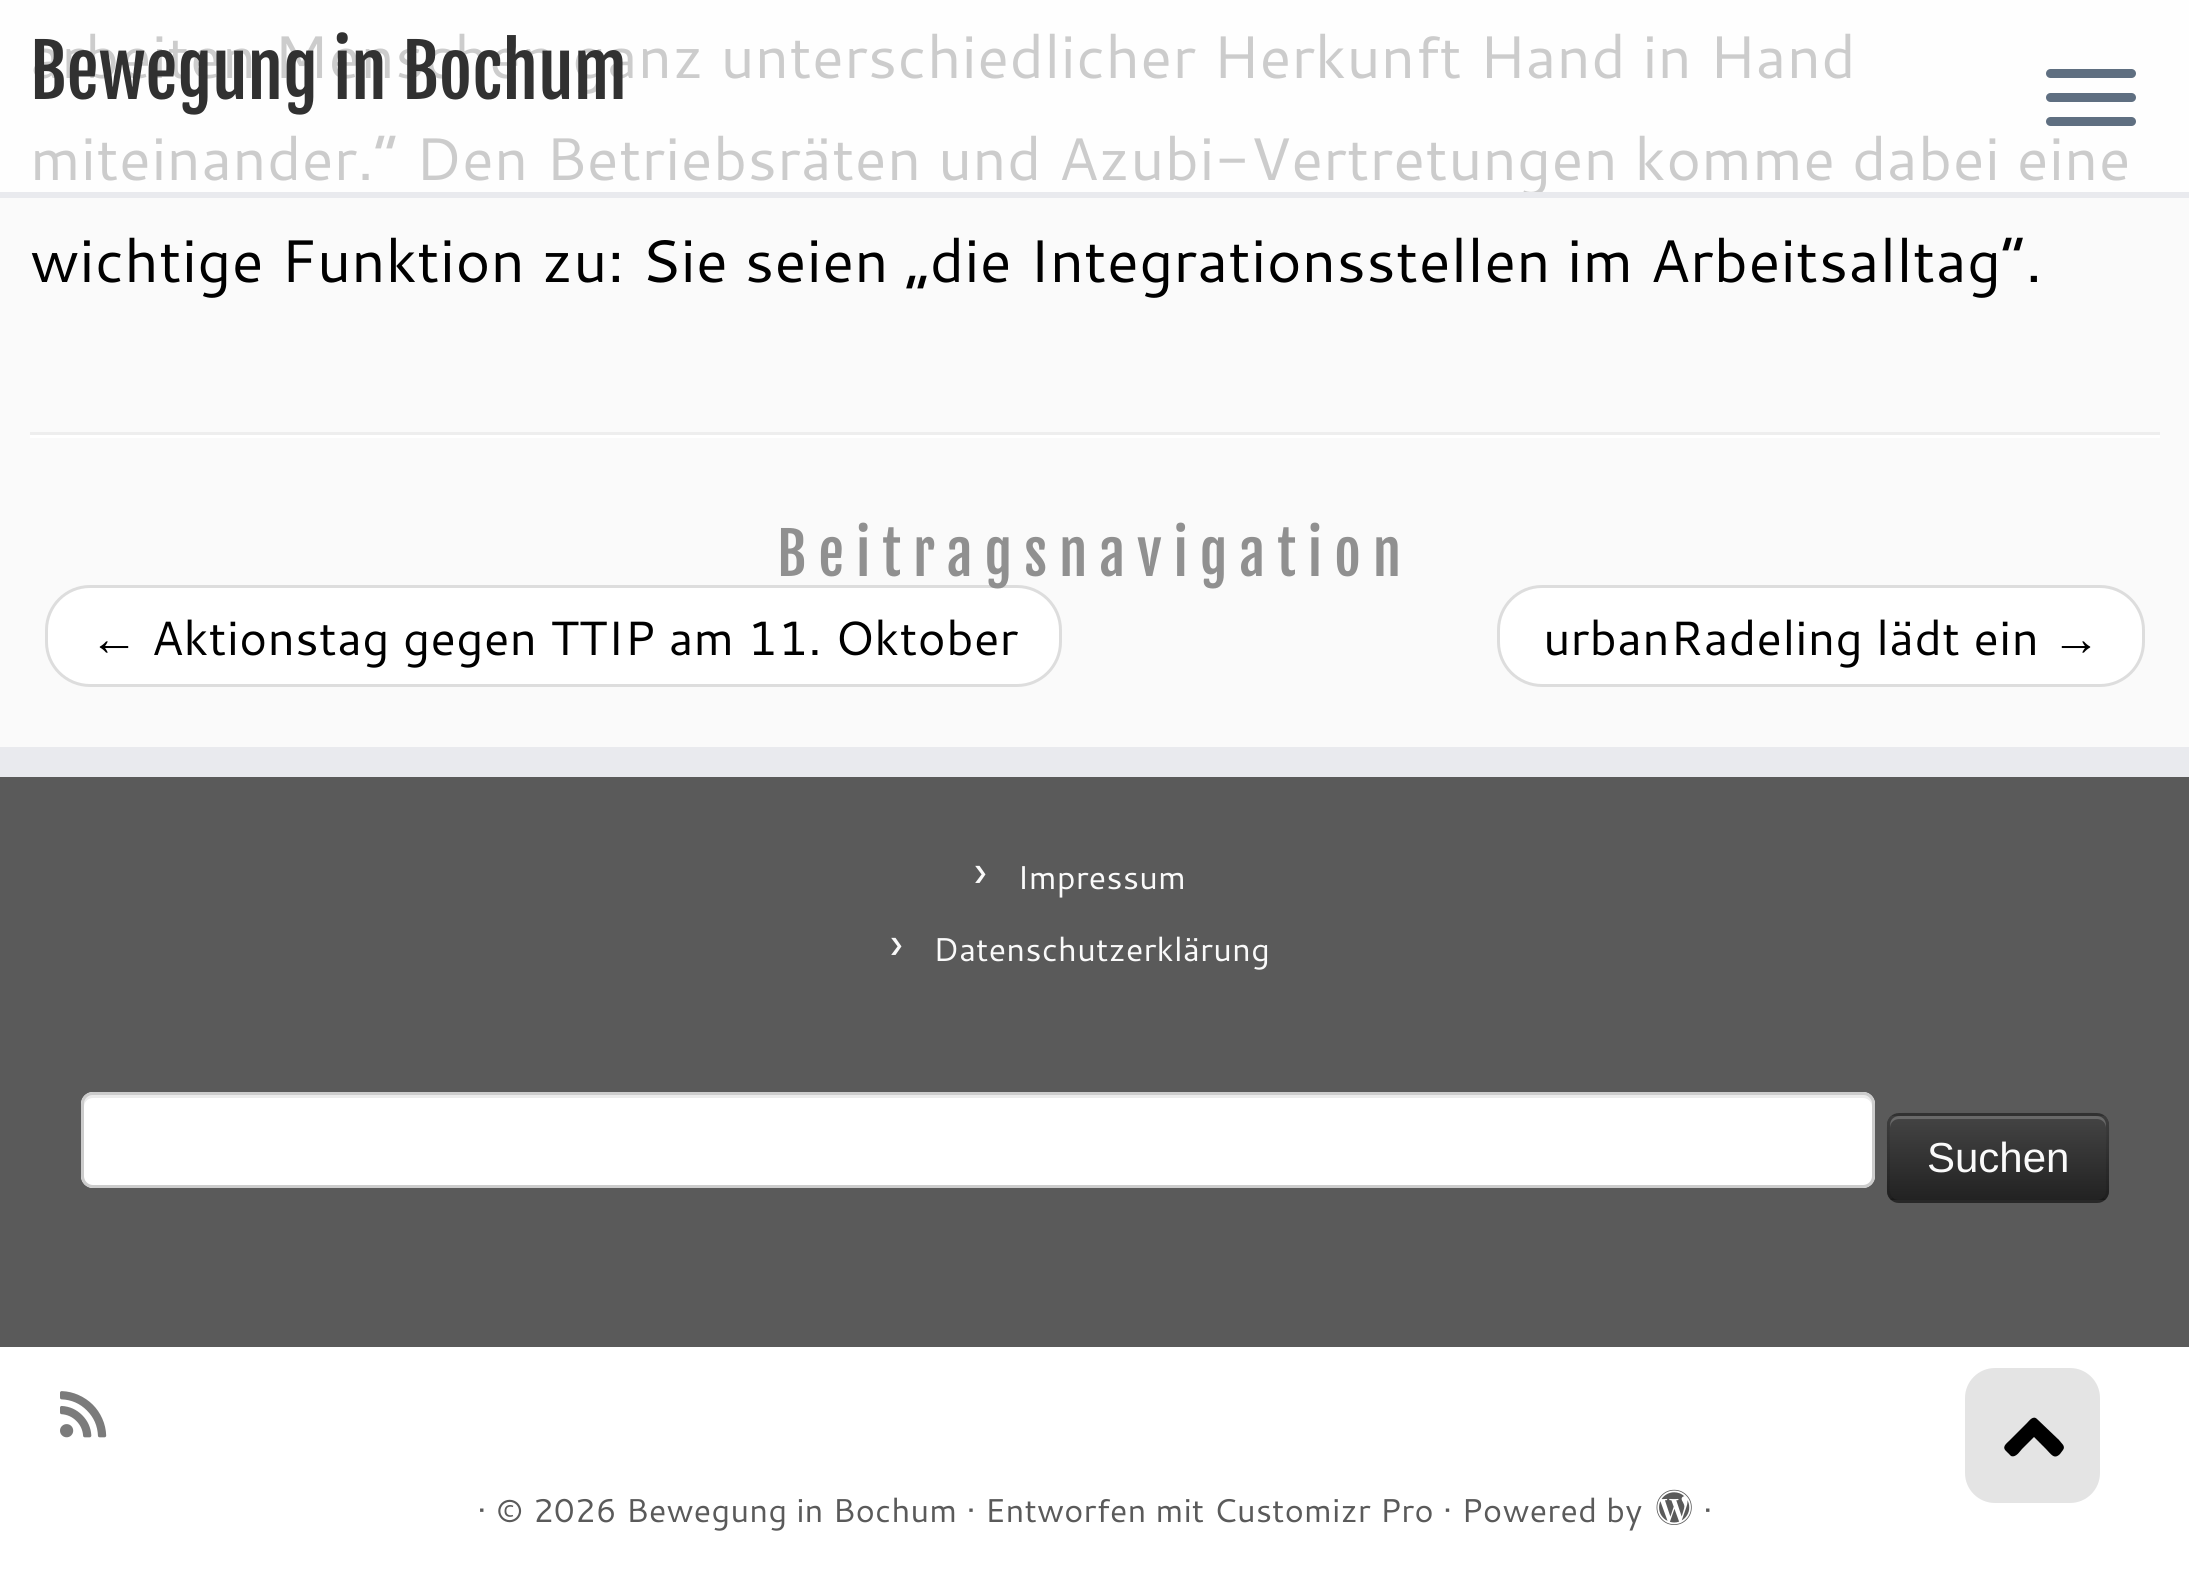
import math
import cairocffi as cairo

surface = cairo.ImageSurface(cairo.FORMAT_RGB24, 2189, 1576)
cr = cairo.Context(surface)
options = cairo.FontOptions()
options.set_hint_metrics(cairo.HINT_METRICS_OFF)
options.set_hint_style(cairo.HINT_STYLE_NONE)
cr.set_font_options(options)
cr.set_miter_limit(4)


def use_color(code):
    cr.set_source_rgb(*(v / 255 for v in bytes.fromhex(code[-6:])))


def spaced_text(x, y, s, letter, word):
    cr.move_to(x, y)
    for ch in s:
        cr.show_text(ch)
        cr.rel_move_to(letter + word * (ch == ' '), 0)


def round_rect(x, y, w, h, r):
    cr.new_sub_path()
    for i, (u, v) in enumerate([(x + w - r, y + h - r), (x + r, y + h - r), (x + r, y + r), (x + w - r, y + r)]):
        cr.arc(u, v, r, i * math.pi / 2, (i + 1) * math.pi / 2)
    cr.close_path()


def picture(path, x, y, w, h):
    cr.save()
    cr.set_source_surface(cairo.ImageSurface.create_from_png(path), x, y)
    cr.rectangle(x, y, w, h)
    cr.fill()
    cr.restore()


use_color("#fafafa")
cr.paint()
use_color("#fefefe")
cr.rectangle(0, 0, 2189, 192)
cr.fill()
cr.select_font_face("Cantarell")
cr.set_font_size(60)
use_color("#cccccc")
cr.move_to(30, 180)
cr.show_text("miteinander.“ Den Betriebsräten und Azubi-Vertretungen komme dabei eine")
use_color("#e9eaee")
cr.rectangle(0, 192, 2189, 6)
cr.fill()
use_color("#cccccc")
cr.move_to(30, 78)
cr.show_text("arbeiten Menschen ganz unterschiedlicher Herkunft Hand in Hand")
cr.select_font_face("Fjalla One")
cr.set_font_size(72)
use_color("#313131")
cr.move_to(30, 99)
cr.show_text("Bewegung in Bochum")
use_color("#5f6f81")
round_rect(2046, 69, 90, 9, 4.5)
cr.fill()
round_rect(2046, 93, 90, 9, 4.5)
cr.fill()
round_rect(2046, 117, 90, 9, 4.5)
cr.fill()
cr.select_font_face("Cantarell")
cr.set_font_size(60)
use_color("#000000")
cr.move_to(30, 282)
cr.show_text("wichtige Funktion zu: Sie seien „die Integrationsstellen im Arbeitsalltag“.")
use_color("#eeeeee")
cr.rectangle(30, 432, 2130, 3)
cr.fill()
use_color("#ffffff")
cr.rectangle(30, 435, 2130, 3)
cr.fill()
round_rect(46.5, 586.5, 1014, 99, 43.5)
cr.fill_preserve()
use_color("#dddddd")
cr.set_line_width(3)
cr.stroke()
cr.select_font_face("Fjalla One")
cr.set_font_size(57.6)
use_color("#909090")
spaced_text(777, 576, "Beitragsnavigation", 12, 0)
cr.select_font_face("Liberation Serif")
cr.set_font_size(48)
use_color("#000000")
cr.move_to(90, 655)
cr.show_text("←")
cr.select_font_face("Cantarell")
cr.move_to(151, 655)
cr.show_text("Aktionstag gegen TTIP am 11. Oktober")
use_color("#ffffff")
round_rect(1498.5, 586.5, 645, 99, 43.5)
cr.fill_preserve()
use_color("#dddddd")
cr.stroke()
use_color("#000000")
cr.move_to(1543, 655)
cr.show_text("urbanRadeling lädt ein")
cr.select_font_face("Liberation Serif")
cr.move_to(2052, 655)
cr.show_text("→")
use_color("#5a5a5a")
cr.rectangle(0, 777, 2189, 570)
cr.fill()
use_color("#e9eaee")
cr.rectangle(0, 747, 2189, 30)
cr.fill()
cr.select_font_face("Cantarell")
use_color("#fafafa")
cr.move_to(974, 889)
cr.show_text("›")
cr.set_font_size(33)
cr.move_to(1017, 889)
cr.show_text("Impressum")
cr.set_font_size(48)
cr.move_to(890, 961)
cr.show_text("›")
cr.set_font_size(33)
cr.move_to(933, 961)
cr.show_text("Datenschutzerklärung")
use_color("#ffffff")
round_rect(81, 1092, 1794, 96, 12)
cr.fill()
use_color("#ececec")
cr.new_path()
cr.move_to(93, 1098)
cr.line_to(1863, 1098)
cr.curve_to(1868, 1098, 1872, 1102, 1872, 1107)
cr.line_to(1872, 1104)
cr.curve_to(1872, 1099, 1868, 1095, 1863, 1095)
cr.line_to(93, 1095)
cr.curve_to(88, 1095, 84, 1099, 84, 1104)
cr.line_to(84, 1107)
cr.curve_to(84, 1102, 88, 1098, 93, 1098)
cr.close_path()
cr.fill()
round_rect(82.5, 1093.5, 1791, 93, 10.5)
use_color("#cccccc")
cr.stroke()
use_color("#363636")
round_rect(1887, 1113, 222, 90, 12)
cr.fill()
cr.save()
round_rect(1887, 1113, 222, 90, 12)
cr.clip()
gradient = cairo.LinearGradient(1998, 1116, 1998, 1200)
gradient.add_color_stop_rgba(0, 0.267, 0.267, 0.267, 1)
gradient.add_color_stop_rgba(1, 0.133, 0.133, 0.133, 1)
cr.set_source(gradient)
cr.rectangle(1887, 1116, 222, 84)
cr.fill()
cr.restore()
cr.set_source_rgba(1, 1, 1, 0.2)
cr.new_path()
cr.move_to(1899, 1119)
cr.line_to(2097, 1119)
cr.curve_to(2102, 1119, 2106, 1123, 2106, 1128)
cr.line_to(2106, 1125)
cr.curve_to(2106, 1120, 2102, 1116, 2097, 1116)
cr.line_to(1899, 1116)
cr.curve_to(1894, 1116, 1890, 1120, 1890, 1125)
cr.line_to(1890, 1128)
cr.curve_to(1890, 1123, 1894, 1119, 1899, 1119)
cr.close_path()
cr.fill()
cr.new_path()
cr.move_to(2104.5, 1198.5)
cr.curve_to(2102.5, 1200.5, 2100, 1201.5, 2097, 1201.5)
cr.line_to(1899, 1201.5)
cr.curve_to(1896, 1201.5, 1893.5, 1200.5, 1891.5, 1198.5)
cr.set_source_rgba(0, 0, 0, 0.25)
cr.stroke()
cr.new_path()
cr.move_to(1891.5, 1198.5)
cr.curve_to(1887, 1193.5, 1888.5, 1185.5, 1888.5, 1180)
cr.line_to(1888.5, 1158)
cr.curve_to(1888.5, 1108.5, 1881.5, 1114.5, 1932, 1114.5)
cr.line_to(2064, 1114.5)
cr.curve_to(2114.5, 1114.5, 2107.5, 1108.5, 2107.5, 1158)
cr.line_to(2107.5, 1180)
cr.curve_to(2107.5, 1185.5, 2109, 1193.5, 2104.5, 1198.5)
cr.set_source_rgba(0, 0, 0, 0.1)
cr.stroke()
cr.select_font_face("Liberation Sans")
cr.set_font_size(42)
use_color("#fafafa")
cr.move_to(1927, 1172)
cr.show_text("Suchen")
use_color("#ffffff")
cr.rectangle(0, 1347, 2189, 229)
cr.fill()
picture("img1.png", 60, 1391, 47, 47)
cr.select_font_face("Cantarell")
cr.set_font_size(33)
use_color("#5a5a5a")
cr.move_to(477, 1522)
cr.show_text("· © 2026 Bewegung in Bochum · Entworfen mit Customizr Pro · Powered by")
picture("img2.png", 1656, 1489, 36, 36)
cr.move_to(1703, 1522)
cr.show_text("·")
use_color("#e4e4e4")
round_rect(1965, 1368, 135, 135, 30)
cr.fill()
use_color("#000000")
cr.new_path()
cr.move_to(2037, 1419)
cr.line_to(2059, 1440)
cr.curve_to(2061, 1443, 2066, 1446, 2063, 1450)
cr.line_to(2060, 1454)
cr.curve_to(2054, 1460, 2051, 1454, 2046, 1449)
cr.line_to(2034, 1437)
cr.line_to(2022, 1449)
cr.curve_to(2020, 1451, 2016, 1458, 2011, 1456)
cr.line_to(2007, 1452)
cr.curve_to(2001, 1447, 2006, 1444, 2010, 1440)
cr.line_to(2027, 1423)
cr.curve_to(2029, 1421, 2033, 1415, 2037, 1419)
cr.close_path()
cr.fill()
surface.write_to_png("result.png")
